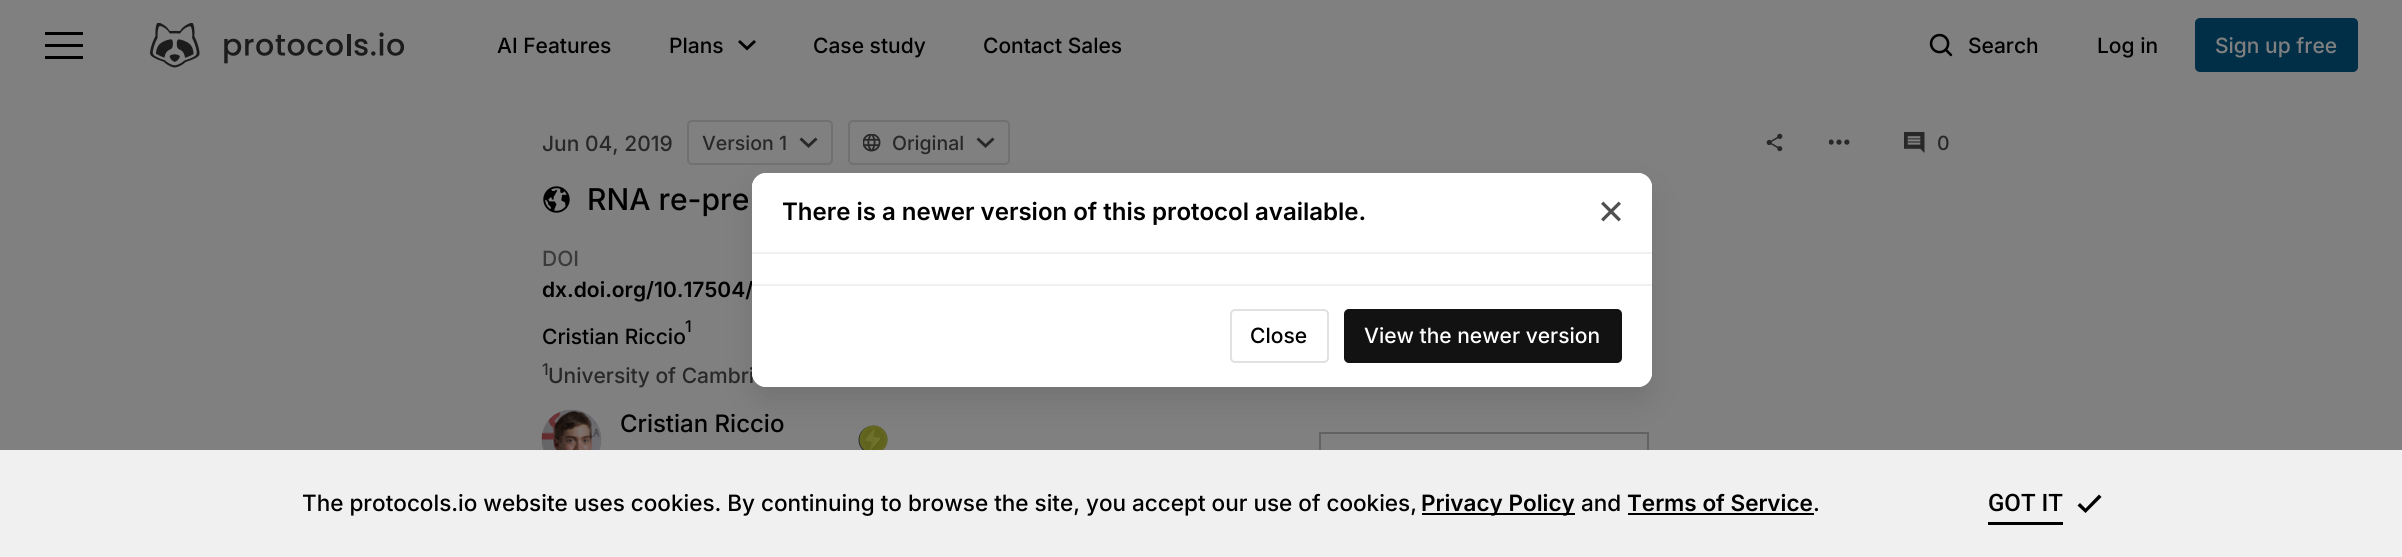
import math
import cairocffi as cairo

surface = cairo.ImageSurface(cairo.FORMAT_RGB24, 2402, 557)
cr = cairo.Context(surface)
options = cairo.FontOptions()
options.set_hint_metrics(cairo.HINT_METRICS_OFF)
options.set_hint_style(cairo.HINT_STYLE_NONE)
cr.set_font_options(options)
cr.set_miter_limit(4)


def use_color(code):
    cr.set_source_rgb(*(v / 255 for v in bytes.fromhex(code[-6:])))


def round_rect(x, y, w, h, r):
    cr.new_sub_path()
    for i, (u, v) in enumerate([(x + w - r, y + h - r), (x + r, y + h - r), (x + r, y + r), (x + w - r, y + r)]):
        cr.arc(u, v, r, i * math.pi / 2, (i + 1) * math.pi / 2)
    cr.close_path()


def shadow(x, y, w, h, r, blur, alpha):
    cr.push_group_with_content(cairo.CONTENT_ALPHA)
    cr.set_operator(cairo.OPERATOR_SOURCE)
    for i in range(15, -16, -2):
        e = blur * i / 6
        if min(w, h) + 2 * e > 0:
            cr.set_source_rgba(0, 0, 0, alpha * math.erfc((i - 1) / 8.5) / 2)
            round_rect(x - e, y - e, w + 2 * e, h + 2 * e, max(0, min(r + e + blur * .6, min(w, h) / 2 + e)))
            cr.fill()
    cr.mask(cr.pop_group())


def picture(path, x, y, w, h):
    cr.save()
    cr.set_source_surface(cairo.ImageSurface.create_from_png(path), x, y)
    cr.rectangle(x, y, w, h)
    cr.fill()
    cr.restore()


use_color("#808080")
cr.paint()
use_color("#000000")
cr.rectangle(45, 32, 38, 3)
cr.fill()
cr.rectangle(45, 44, 38, 3)
cr.fill()
cr.rectangle(45, 56, 38, 3)
cr.fill()
picture("img1.png", 150, 23, 255, 45)
cr.select_font_face("Inter Medium")
cr.set_font_size(21)
cr.move_to(497, 53)
cr.show_text("AI Features")
cr.move_to(669, 53)
cr.show_text("Plans")
cr.new_path()
cr.move_to(754, 40)
cr.line_to(747, 46.5)
cr.line_to(740, 40)
cr.line_to(738, 42)
cr.line_to(747, 50.5)
cr.line_to(756, 42)
cr.close_path()
cr.fill()
cr.move_to(813, 53)
cr.show_text("Case study")
cr.move_to(983, 53)
cr.show_text("Contact Sales")
picture("img2.png", 1929, 33, 24, 24)
cr.move_to(1968, 53)
cr.show_text("Search")
cr.move_to(2097, 53)
cr.show_text("Log in")
use_color("#012f47")
round_rect(2195, 18, 163, 54, 5)
cr.fill()
use_color("#808080")
cr.move_to(2215, 53)
cr.show_text("Sign up free")
use_color("#282828")
cr.move_to(542, 151)
cr.show_text("Jun 04, 2019")
round_rect(688, 121, 144, 43, 4)
use_color("#717171")
cr.stroke()
cr.set_font_size(19.5)
use_color("#282828")
cr.move_to(702, 150)
cr.show_text("Version 1")
cr.new_path()
cr.move_to(815.5, 137.5)
cr.line_to(808.5, 144)
cr.line_to(801.5, 137.5)
cr.line_to(799.5, 139.5)
cr.line_to(808.5, 148)
cr.line_to(817.5, 139.5)
cr.close_path()
cr.fill()
round_rect(849, 121, 160, 43, 4)
use_color("#717171")
cr.stroke()
picture("img3.png", 863, 134, 18, 18)
use_color("#282828")
cr.move_to(892, 150)
cr.show_text("Original")
cr.new_path()
cr.move_to(992.5, 137.5)
cr.line_to(985.5, 144)
cr.line_to(978.5, 137.5)
cr.line_to(976.5, 139.5)
cr.line_to(985.5, 148)
cr.line_to(994.5, 139.5)
cr.close_path()
cr.fill()
picture("img4.png", 1766, 133, 17, 19)
picture("img5.png", 1829, 139, 21, 6)
picture("img6.png", 1904, 132, 21, 21)
cr.move_to(1937, 150)
cr.show_text("0")
picture("img7.png", 543, 186, 27, 27)
cr.set_font_size(30)
use_color("#000000")
cr.move_to(587, 210)
cr.show_text("RNA re-pre")
cr.set_font_size(21)
use_color("#3b3b3b")
cr.move_to(542, 266)
cr.show_text("DOI")
cr.select_font_face("Inter SemiBold")
use_color("#000000")
cr.move_to(542, 297)
cr.show_text("dx.doi.org/10.17504/")
cr.select_font_face("Inter Medium")
cr.set_font_size(16)
cr.move_to(685, 332)
cr.show_text("1")
cr.set_font_size(21)
cr.move_to(542, 344)
cr.show_text("Cristian Riccio")
cr.set_font_size(16)
use_color("#282828")
cr.move_to(542, 375)
cr.show_text("1")
cr.set_font_size(21)
cr.move_to(548, 383)
cr.show_text("University of Cambri")
picture("img8.png", 541, 409, 61, 41)
cr.set_font_size(24)
use_color("#000000")
cr.move_to(620, 432)
cr.show_text("Cristian Riccio")
picture("img9.png", 858, 425, 30, 25)
cr.rectangle(1320, 433, 328, 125)
use_color("#626262")
cr.stroke()
use_color("#000000")
shadow(752, 188, 900, 214, 14, 15, 0.1)
use_color("#ffffff")
round_rect(752, 173, 900, 214, 14)
cr.fill()
cr.new_path()
cr.move_to(766, 173)
cr.line_to(1638, 173)
cr.curve_to(1645.5, 173, 1652, 179.5, 1652, 187)
cr.line_to(1652, 254)
cr.line_to(752, 254)
cr.line_to(752, 187)
cr.curve_to(752, 179.5, 758.5, 173, 766, 173)
cr.close_path()
cr.fill()
use_color("#f0f0f0")
cr.rectangle(752, 252, 900, 2)
cr.fill()
cr.select_font_face("Inter SemiBold")
use_color("#000000")
cr.move_to(782, 220)
cr.show_text("There is a newer version of this protocol available.")
picture("img10.png", 1601, 201, 20, 21)
use_color("#ffffff")
cr.new_path()
cr.move_to(752, 284)
cr.line_to(1652, 284)
cr.line_to(1652, 373)
cr.curve_to(1652, 380.5, 1645.5, 387, 1638, 387)
cr.line_to(766, 387)
cr.curve_to(758.5, 387, 752, 380.5, 752, 373)
cr.close_path()
cr.fill()
use_color("#f0f0f0")
cr.rectangle(752, 284, 900, 2)
cr.fill()
round_rect(1231, 310, 97, 52, 4)
use_color("#e1e1e1")
cr.stroke()
cr.select_font_face("Inter Medium")
cr.set_font_size(21)
use_color("#000000")
cr.move_to(1250, 343)
cr.show_text("Close")
use_color("#121212")
round_rect(1344, 309, 278, 54, 5)
cr.fill()
use_color("#ffffff")
cr.move_to(1364, 343)
cr.show_text("View the newer version")
use_color("#f0f0f0")
cr.rectangle(0, 450, 2402, 107)
cr.fill()
cr.set_font_size(22.5)
use_color("#000000")
cr.move_to(302, 511)
cr.show_text("The protocols.io website uses cookies. By continuing to browse the site, you accept our use of cookies,")
cr.rectangle(1422, 513, 153, 2)
cr.fill()
cr.select_font_face("Inter SemiBold")
cr.move_to(1421, 511)
cr.show_text("Privacy Policy")
cr.select_font_face("Inter Medium")
cr.move_to(1581, 511)
cr.show_text("and")
cr.select_font_face("Inter SemiBold")
cr.move_to(1627, 511)
cr.show_text("Terms of Service")
cr.rectangle(1628, 513, 186, 2)
cr.fill()
cr.select_font_face("Inter Medium")
cr.move_to(1813, 511)
cr.show_text(".")
cr.select_font_face("Roboto Medium")
cr.set_font_size(24)
cr.move_to(1988, 511)
cr.show_text("GOT IT")
cr.rectangle(1988, 522, 75, 3)
cr.fill()
cr.new_path()
cr.move_to(2101.5, 497)
cr.line_to(2099, 494.5)
cr.line_to(2085.5, 508.5)
cr.line_to(2080, 503)
cr.line_to(2077.5, 505.5)
cr.line_to(2085.5, 513)
cr.close_path()
cr.fill()
surface.write_to_png("result.png")
